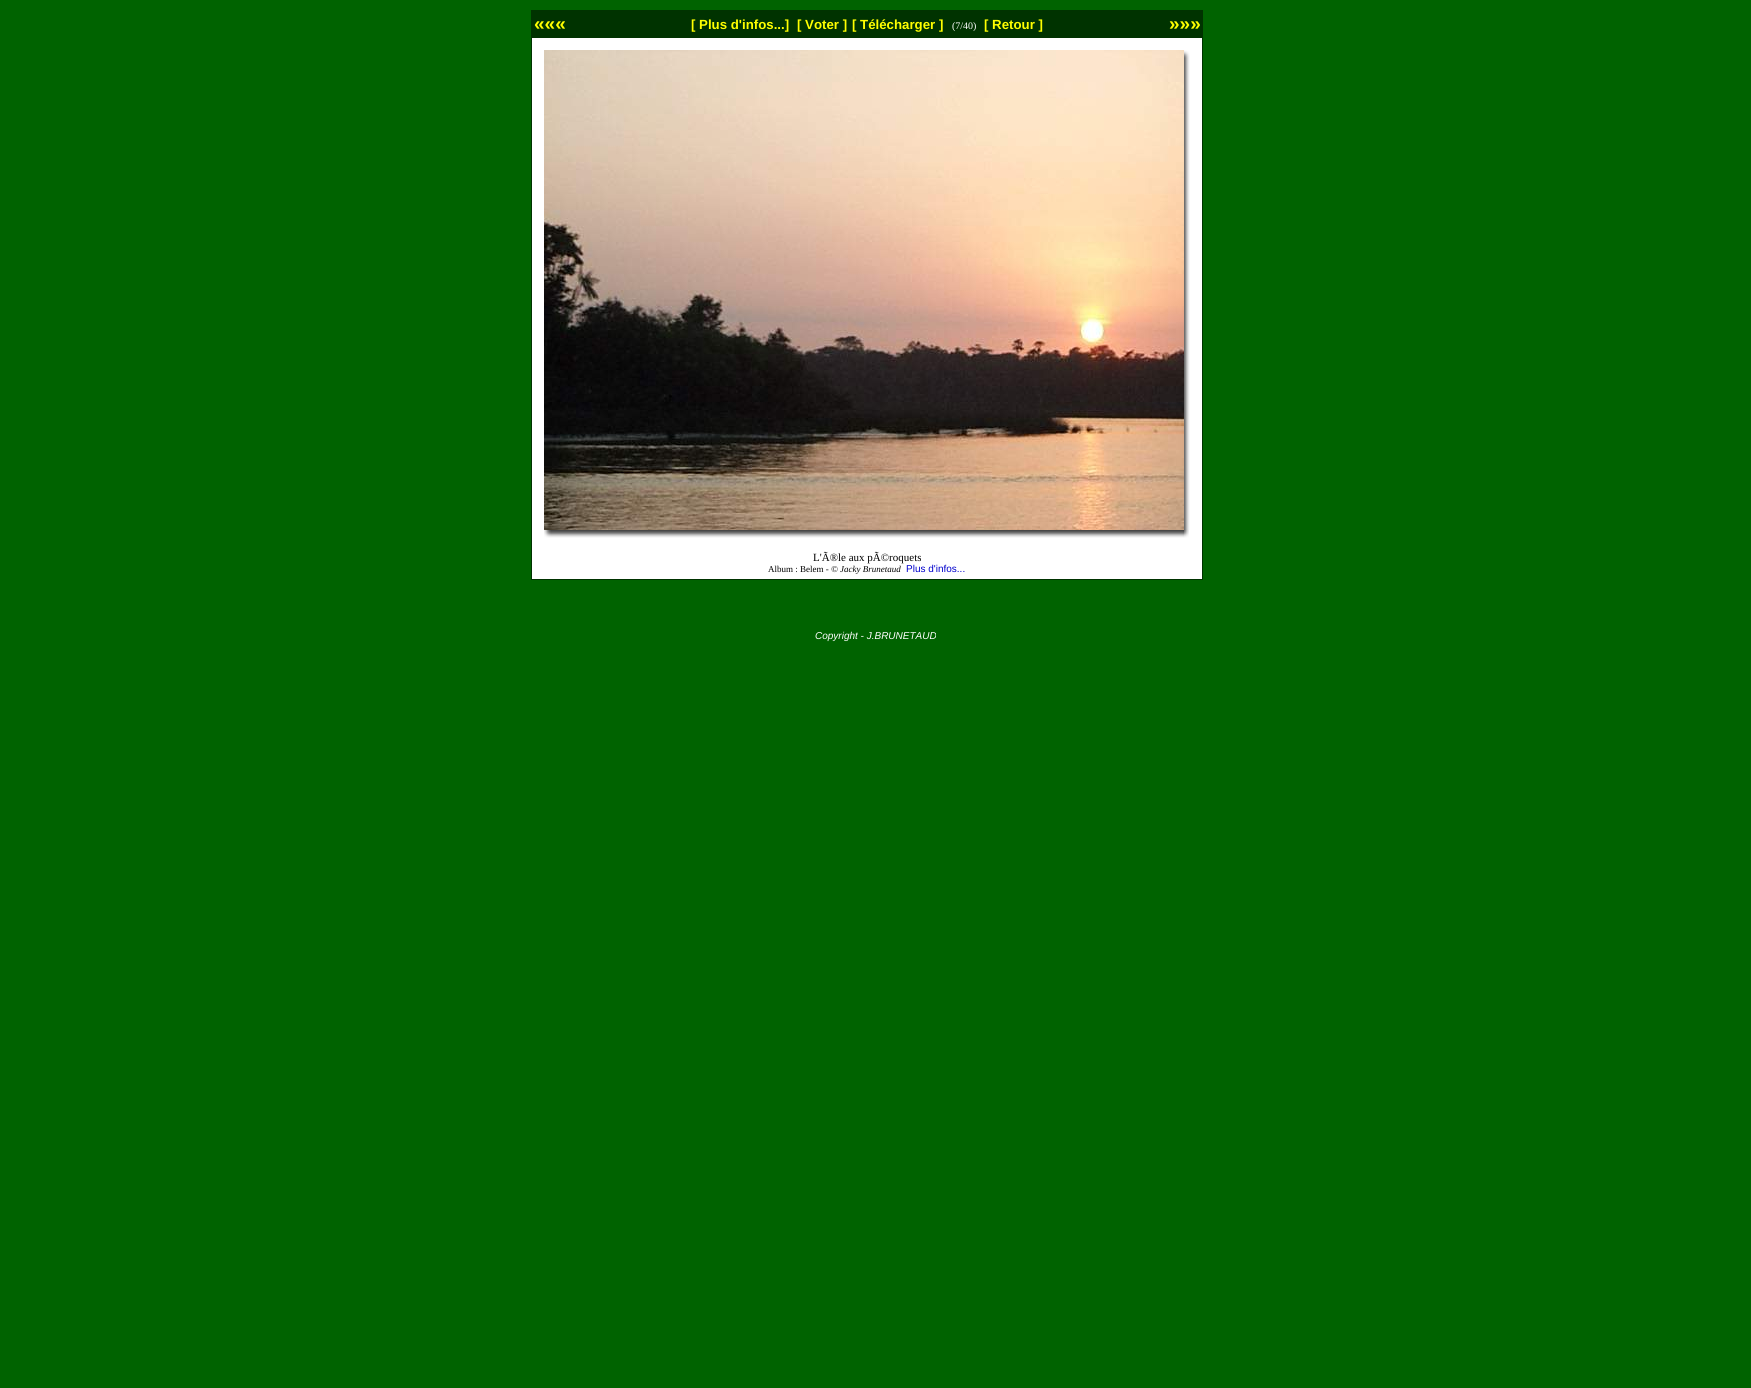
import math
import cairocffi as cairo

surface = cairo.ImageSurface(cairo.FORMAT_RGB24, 1751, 1388)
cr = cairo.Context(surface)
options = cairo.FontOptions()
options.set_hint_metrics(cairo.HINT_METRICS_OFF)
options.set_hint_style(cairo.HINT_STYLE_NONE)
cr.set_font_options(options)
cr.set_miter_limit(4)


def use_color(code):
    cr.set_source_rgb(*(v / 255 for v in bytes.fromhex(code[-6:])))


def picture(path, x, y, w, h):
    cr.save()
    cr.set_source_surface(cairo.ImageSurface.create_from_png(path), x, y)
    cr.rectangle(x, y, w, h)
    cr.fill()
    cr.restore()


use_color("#006300")
cr.paint()
use_color("#003300")
cr.rectangle(531, 10, 672, 570)
cr.fill()
cr.select_font_face("Liberation Sans", cairo.FONT_SLANT_NORMAL, cairo.FONT_WEIGHT_BOLD)
cr.set_font_size(19)
use_color("#ffff00")
cr.move_to(534, 30)
cr.show_text("«««")
cr.set_font_size(13.25)
cr.move_to(691, 29)
cr.show_text("[ Plus d'infos...]")
cr.move_to(797, 29)
cr.show_text("[ Voter ]")
cr.move_to(852, 29)
cr.show_text("[ Télécharger ]")
cr.select_font_face("Liberation Serif")
cr.set_font_size(10)
use_color("#ffffff")
cr.move_to(952, 29)
cr.show_text("(7/40)")
cr.select_font_face("Liberation Sans", cairo.FONT_SLANT_NORMAL, cairo.FONT_WEIGHT_BOLD)
cr.set_font_size(13.25)
use_color("#ffff00")
cr.move_to(984, 29)
cr.show_text("[ Retour ]")
cr.set_font_size(19)
cr.move_to(1169, 30)
cr.show_text("»»»")
use_color("#ffffff")
cr.rectangle(532, 38, 670, 541)
cr.fill()
picture("img1.png", 544, 50, 640, 480)
picture("img2.png", 1184, 50, 6, 8)
picture("img3.png", 1184, 58, 6, 472)
picture("img4.png", 544, 530, 7, 8)
picture("img5.png", 551, 530, 633, 8)
picture("img6.png", 1184, 530, 5, 8)
cr.select_font_face("Liberation Serif")
cr.set_font_size(11)
use_color("#000000")
cr.move_to(813, 561)
cr.show_text("L'Ã®le aux pÃ©roquets")
cr.set_font_size(9)
cr.move_to(768, 572)
cr.show_text("Album : Belem -")
cr.select_font_face("Liberation Serif", cairo.FONT_SLANT_ITALIC)
cr.move_to(831, 572)
cr.show_text("© Jacky Brunetaud")
cr.select_font_face("Liberation Sans")
cr.set_font_size(10)
use_color("#0000cc")
cr.move_to(906, 572)
cr.show_text("Plus d'infos...")
cr.select_font_face("Liberation Sans", cairo.FONT_SLANT_ITALIC)
use_color("#ffffff")
cr.move_to(815, 639)
cr.show_text("Copyright - J.BRUNETAUD")
surface.write_to_png("result.png")
